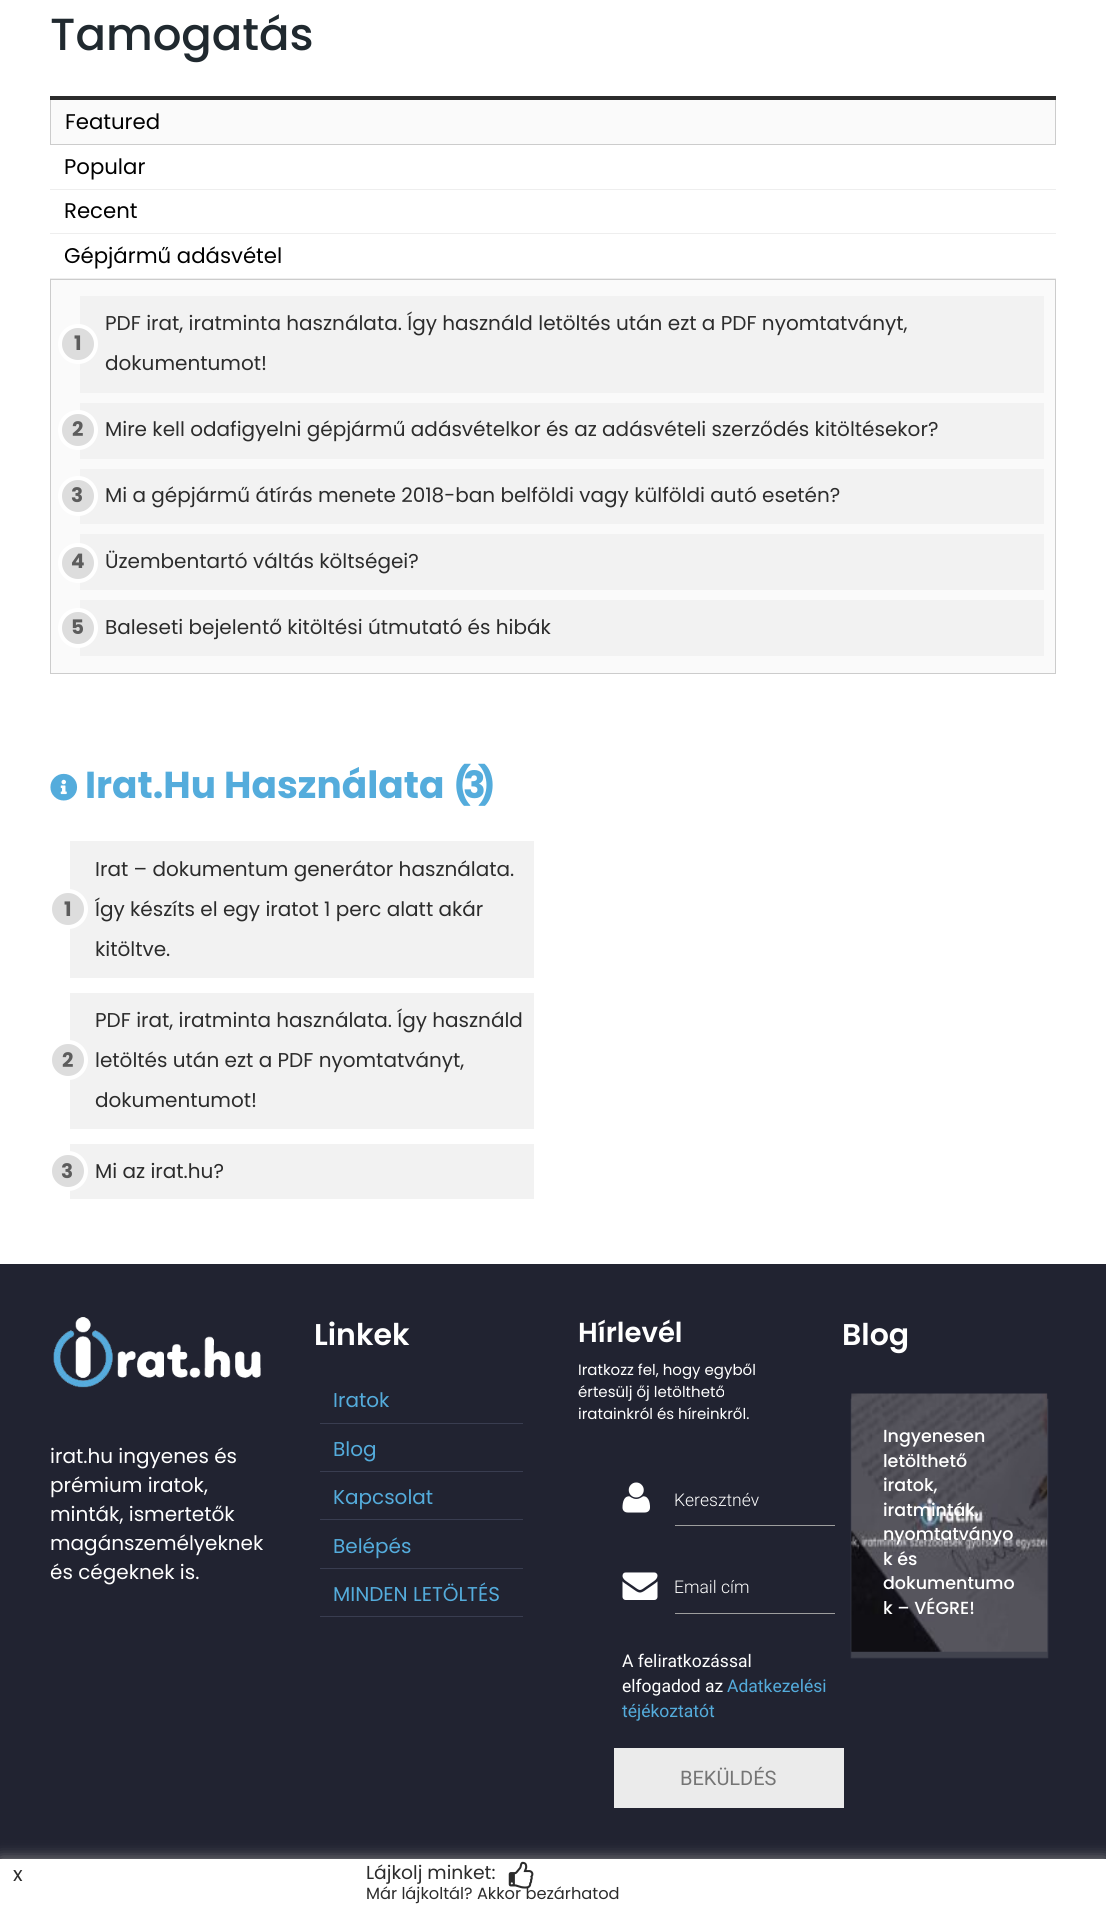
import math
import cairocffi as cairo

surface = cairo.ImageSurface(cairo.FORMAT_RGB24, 1106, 1908)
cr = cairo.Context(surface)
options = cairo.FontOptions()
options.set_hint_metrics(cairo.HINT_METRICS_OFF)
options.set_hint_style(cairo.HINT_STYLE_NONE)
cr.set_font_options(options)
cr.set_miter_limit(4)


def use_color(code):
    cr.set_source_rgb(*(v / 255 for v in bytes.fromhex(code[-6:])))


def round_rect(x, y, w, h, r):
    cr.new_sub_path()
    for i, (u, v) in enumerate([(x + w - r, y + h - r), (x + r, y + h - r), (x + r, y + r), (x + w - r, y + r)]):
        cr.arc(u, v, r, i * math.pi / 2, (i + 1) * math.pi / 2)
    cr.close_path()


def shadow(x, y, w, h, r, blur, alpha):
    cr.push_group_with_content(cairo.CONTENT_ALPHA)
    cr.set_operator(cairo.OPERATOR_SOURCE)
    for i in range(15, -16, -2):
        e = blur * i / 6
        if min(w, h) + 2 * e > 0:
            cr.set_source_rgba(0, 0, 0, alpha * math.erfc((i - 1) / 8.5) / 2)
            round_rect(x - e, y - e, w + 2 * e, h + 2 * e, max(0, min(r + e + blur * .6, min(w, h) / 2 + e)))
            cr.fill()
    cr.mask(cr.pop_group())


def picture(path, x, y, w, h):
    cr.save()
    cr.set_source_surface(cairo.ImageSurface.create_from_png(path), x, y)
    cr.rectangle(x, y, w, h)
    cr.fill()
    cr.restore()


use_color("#ffffff")
cr.paint()
cr.select_font_face("Poppins Medium")
cr.set_font_size(45)
use_color("#20292f")
cr.move_to(50, 50)
cr.show_text("Tamogatás")
use_color("#2c2c2c")
cr.rectangle(50, 96, 1006, 4)
cr.fill()
use_color("#fafafa")
cr.rectangle(51, 100, 1004, 44)
cr.fill()
use_color("#cccccc")
cr.rectangle(1055, 100, 1, 45)
cr.fill()
cr.rectangle(50, 144, 1006, 1)
cr.fill()
cr.rectangle(50, 100, 1, 45)
cr.fill()
cr.select_font_face("Poppins")
cr.set_font_size(21.25)
use_color("#000000")
cr.move_to(65, 129)
cr.show_text("Featured")
use_color("#eeeeee")
cr.rectangle(50, 189, 1006, 1)
cr.fill()
use_color("#000000")
cr.move_to(64, 174)
cr.show_text("Popular")
use_color("#eeeeee")
cr.rectangle(50, 233, 1006, 1)
cr.fill()
use_color("#000000")
cr.move_to(64, 218)
cr.show_text("Recent")
use_color("#eeeeee")
cr.rectangle(50, 278, 1006, 1)
cr.fill()
use_color("#000000")
cr.move_to(64, 263)
cr.show_text("Gépjármű adásvétel")
use_color("#fafafa")
cr.rectangle(50.5, 279.5, 1005, 394)
cr.fill_preserve()
use_color("#cccccc")
cr.set_line_width(1)
cr.stroke()
use_color("#f2f2f2")
cr.rectangle(80, 296, 964, 97)
cr.fill()
cr.set_font_size(20)
use_color("#2c2c2c")
cr.move_to(105, 330)
cr.show_text("PDF irat, iratminta használata. Így használd letöltés után ezt a PDF nyomtatványt,")
use_color("#dddddd")
cr.new_path()
cr.arc(78, 344, 18, 0, 2 * math.pi)
cr.fill_preserve()
use_color("#ffffff")
cr.set_line_width(4)
cr.stroke()
cr.select_font_face("Poppins", cairo.FONT_SLANT_NORMAL, cairo.FONT_WEIGHT_BOLD)
use_color("#5c5c5c")
cr.move_to(74, 350)
cr.show_text("1")
cr.select_font_face("Poppins")
use_color("#2c2c2c")
cr.move_to(105, 370)
cr.show_text("dokumentumot!")
use_color("#f2f2f2")
cr.rectangle(80, 403, 964, 56)
cr.fill()
use_color("#dddddd")
cr.arc(78, 430, 18, 0, 2 * math.pi)
cr.fill_preserve()
use_color("#ffffff")
cr.stroke()
cr.select_font_face("Poppins", cairo.FONT_SLANT_NORMAL, cairo.FONT_WEIGHT_BOLD)
use_color("#5c5c5c")
cr.move_to(72, 436)
cr.show_text("2")
cr.select_font_face("Poppins")
use_color("#2c2c2c")
cr.move_to(105, 436)
cr.show_text("Mire kell odafigyelni gépjármű adásvételkor és az adásvételi szerződés kitöltésekor?")
use_color("#f2f2f2")
cr.rectangle(80, 469, 964, 55)
cr.fill()
use_color("#dddddd")
cr.arc(78, 496, 18, 0, 2 * math.pi)
cr.fill_preserve()
use_color("#ffffff")
cr.stroke()
cr.select_font_face("Poppins", cairo.FONT_SLANT_NORMAL, cairo.FONT_WEIGHT_BOLD)
use_color("#5c5c5c")
cr.move_to(71, 502)
cr.show_text("3")
cr.select_font_face("Poppins")
use_color("#2c2c2c")
cr.move_to(105, 502)
cr.show_text("Mi a gépjármű átírás menete 2018-ban belföldi vagy külföldi autó esetén?")
use_color("#f2f2f2")
cr.rectangle(80, 534, 964, 56)
cr.fill()
use_color("#dddddd")
cr.arc(78, 563, 18, 0, 2 * math.pi)
cr.fill_preserve()
use_color("#ffffff")
cr.stroke()
cr.select_font_face("Poppins", cairo.FONT_SLANT_NORMAL, cairo.FONT_WEIGHT_BOLD)
use_color("#5c5c5c")
cr.move_to(71, 568)
cr.show_text("4")
cr.select_font_face("Poppins")
use_color("#2c2c2c")
cr.move_to(105, 568)
cr.show_text("Üzembentartó váltás költségei?")
use_color("#f2f2f2")
cr.rectangle(80, 600, 964, 56)
cr.fill()
use_color("#dddddd")
cr.arc(78, 628, 18, 0, 2 * math.pi)
cr.fill_preserve()
use_color("#ffffff")
cr.stroke()
cr.select_font_face("Poppins", cairo.FONT_SLANT_NORMAL, cairo.FONT_WEIGHT_BOLD)
use_color("#5c5c5c")
cr.move_to(71, 634)
cr.show_text("5")
cr.select_font_face("Poppins")
use_color("#2c2c2c")
cr.move_to(105, 634)
cr.show_text("Baleseti bejelentő kitöltési útmutató és hibák")
picture("img1.png", 50, 773, 28, 28)
cr.select_font_face("Poppins", cairo.FONT_SLANT_NORMAL, cairo.FONT_WEIGHT_BOLD)
cr.set_font_size(37.5)
use_color("#54acdc")
cr.move_to(85, 798)
cr.show_text("Irat.Hu Használata")
cr.move_to(463, 798)
cr.show_text("3")
cr.move_to(453, 798)
cr.show_text("(")
cr.move_to(478, 798)
cr.show_text(")")
use_color("#f2f2f2")
cr.rectangle(70, 841, 464, 137)
cr.fill()
cr.select_font_face("Poppins")
cr.set_font_size(20)
use_color("#2c2c2c")
cr.move_to(95, 876)
cr.show_text("Irat – dokumentum generátor használata.")
cr.save()
cr.rectangle(50, 729, 1006, 485)
cr.clip()
use_color("#dddddd")
cr.arc(68, 909, 18, 0, 2 * math.pi)
cr.fill_preserve()
use_color("#ffffff")
cr.stroke()
cr.restore()
cr.select_font_face("Poppins", cairo.FONT_SLANT_NORMAL, cairo.FONT_WEIGHT_BOLD)
use_color("#5c5c5c")
cr.move_to(64, 916)
cr.show_text("1")
cr.select_font_face("Poppins")
use_color("#2c2c2c")
cr.move_to(95, 916)
cr.show_text("Így készíts el egy iratot 1 perc alatt akár")
cr.move_to(95, 956)
cr.show_text("kitöltve.")
use_color("#f2f2f2")
cr.rectangle(70, 993, 464, 136)
cr.fill()
use_color("#2c2c2c")
cr.move_to(95, 1027)
cr.show_text("PDF irat, iratminta használata. Így használd")
cr.save()
cr.rectangle(50, 729, 1006, 485)
cr.clip()
use_color("#dddddd")
cr.arc(68, 1060, 18, 0, 2 * math.pi)
cr.fill_preserve()
use_color("#ffffff")
cr.stroke()
cr.restore()
cr.select_font_face("Poppins", cairo.FONT_SLANT_NORMAL, cairo.FONT_WEIGHT_BOLD)
use_color("#5c5c5c")
cr.move_to(62, 1067)
cr.show_text("2")
cr.select_font_face("Poppins")
use_color("#2c2c2c")
cr.move_to(95, 1067)
cr.show_text("letöltés után ezt a PDF nyomtatványt,")
cr.move_to(95, 1107)
cr.show_text("dokumentumot!")
use_color("#f2f2f2")
cr.rectangle(70, 1144, 464, 55)
cr.fill()
cr.save()
cr.rectangle(50, 729, 1006, 485)
cr.clip()
use_color("#dddddd")
cr.arc(68, 1171, 18, 0, 2 * math.pi)
cr.fill_preserve()
use_color("#ffffff")
cr.stroke()
cr.restore()
cr.select_font_face("Poppins", cairo.FONT_SLANT_NORMAL, cairo.FONT_WEIGHT_BOLD)
use_color("#5c5c5c")
cr.move_to(61, 1178)
cr.show_text("3")
cr.select_font_face("Poppins")
use_color("#2c2c2c")
cr.move_to(95, 1178)
cr.show_text("Mi az irat.hu?")
use_color("#212331")
cr.rectangle(0, 1264, 1106, 595)
cr.fill()
picture("img2.png", 53, 1317, 208, 71)
use_color("#ffffff")
cr.move_to(50, 1463)
cr.show_text("irat.hu ingyenes és")
cr.move_to(50, 1492)
cr.show_text("prémium iratok,")
cr.move_to(50, 1521)
cr.show_text("minták, ismertetők")
cr.move_to(50, 1550)
cr.show_text("magánszemélyeknek")
cr.move_to(50, 1579)
cr.show_text("és cégeknek is.")
cr.select_font_face("Poppins SemiBold")
cr.set_font_size(30)
cr.move_to(314, 1345)
cr.show_text("Linkek")
use_color("#393d50")
cr.rectangle(320, 1423, 203, 1)
cr.fill()
cr.select_font_face("Poppins")
cr.set_font_size(20)
use_color("#54acdc")
cr.move_to(333, 1407)
cr.show_text("Iratok")
use_color("#393d50")
cr.rectangle(320, 1471, 203, 1)
cr.fill()
use_color("#54acdc")
cr.move_to(333, 1456)
cr.show_text("Blog")
use_color("#393d50")
cr.rectangle(320, 1519, 203, 1)
cr.fill()
use_color("#54acdc")
cr.move_to(333, 1504)
cr.show_text("Kapcsolat")
use_color("#393d50")
cr.rectangle(320, 1568, 203, 1)
cr.fill()
use_color("#54acdc")
cr.move_to(333, 1553)
cr.show_text("Belépés")
use_color("#393d50")
cr.rectangle(320, 1616, 203, 1)
cr.fill()
use_color("#54acdc")
cr.move_to(333, 1601)
cr.show_text("MINDEN LETÖLTÉS")
cr.select_font_face("Poppins SemiBold")
cr.set_font_size(27.5)
use_color("#ffffff")
cr.move_to(578, 1342)
cr.show_text("Hírlevél")
cr.select_font_face("Poppins")
cr.set_font_size(15)
cr.move_to(578, 1375)
cr.show_text("Iratkozz fel, hogy egyből")
cr.move_to(578, 1397)
cr.show_text("értesülj őj letölthető")
cr.move_to(578, 1419)
cr.show_text("iratainkról és híreinkről.")
picture("img3.png", 622, 1482, 28, 31)
cr.select_font_face("Roboto Light")
cr.set_font_size(17.5)
cr.move_to(674, 1506)
cr.show_text("Keresztnév")
use_color("#9e9e9e")
cr.rectangle(675, 1525, 160, 1)
cr.fill()
picture("img4.png", 622, 1572, 36, 28)
use_color("#ffffff")
cr.move_to(674, 1593)
cr.show_text("Email cím")
use_color("#9e9e9e")
cr.rectangle(675, 1613, 160, 1)
cr.fill()
cr.select_font_face("Roboto")
use_color("#ffffff")
cr.move_to(622, 1667)
cr.show_text("A feliratkozással")
cr.move_to(622, 1692)
cr.show_text("elfogadod az")
use_color("#54acdc")
cr.move_to(727, 1692)
cr.show_text("Adatkezelési")
cr.move_to(622, 1717)
cr.show_text("téjékoztatót")
use_color("#ebebeb")
cr.rectangle(614, 1748, 230, 60)
cr.fill()
cr.set_font_size(20)
use_color("#757575")
cr.move_to(680, 1785)
cr.show_text("BEKÜLDÉS")
cr.select_font_face("Poppins SemiBold")
cr.set_font_size(30)
use_color("#ffffff")
cr.move_to(842, 1345)
cr.show_text("Blog")
use_color("#c5c5c5")
shadow(851, 1399, 197, 259, 0, 0.5, 0.2)
picture("img5.png", 851, 1393, 197, 259)
cr.select_font_face("Poppins Medium")
cr.set_font_size(17.5)
use_color("#ffffff")
cr.move_to(883, 1442)
cr.show_text("Ingyenesen")
cr.move_to(883, 1467)
cr.show_text("letölthető")
cr.move_to(883, 1491)
cr.show_text("iratok,")
cr.move_to(883, 1516)
cr.show_text("iratminták,")
cr.move_to(883, 1540)
cr.show_text("nyomtatványo")
cr.move_to(883, 1565)
cr.show_text("k és")
cr.move_to(883, 1589)
cr.show_text("dokumentumo")
cr.move_to(883, 1614)
cr.show_text("k – VÉGRE!")
use_color("#8b8b8b")
shadow(0, 1859, 1106, 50, 0, 7.5, 1)
use_color("#ffffff")
cr.rectangle(0, 1859, 1106, 49)
cr.fill()
cr.select_font_face("Poppins")
cr.set_font_size(20)
use_color("#2c2c2c")
cr.move_to(13, 1881)
cr.show_text("x")
cr.set_font_size(18.75)
cr.move_to(366, 1879)
cr.show_text("Lájkolj minket:")
cr.set_font_size(16.25)
cr.move_to(366, 1899)
cr.show_text("Már lájkoltál? Akkor bezárhatod")
picture("img6.png", 508, 1861, 26, 28)
surface.write_to_png("result.png")
